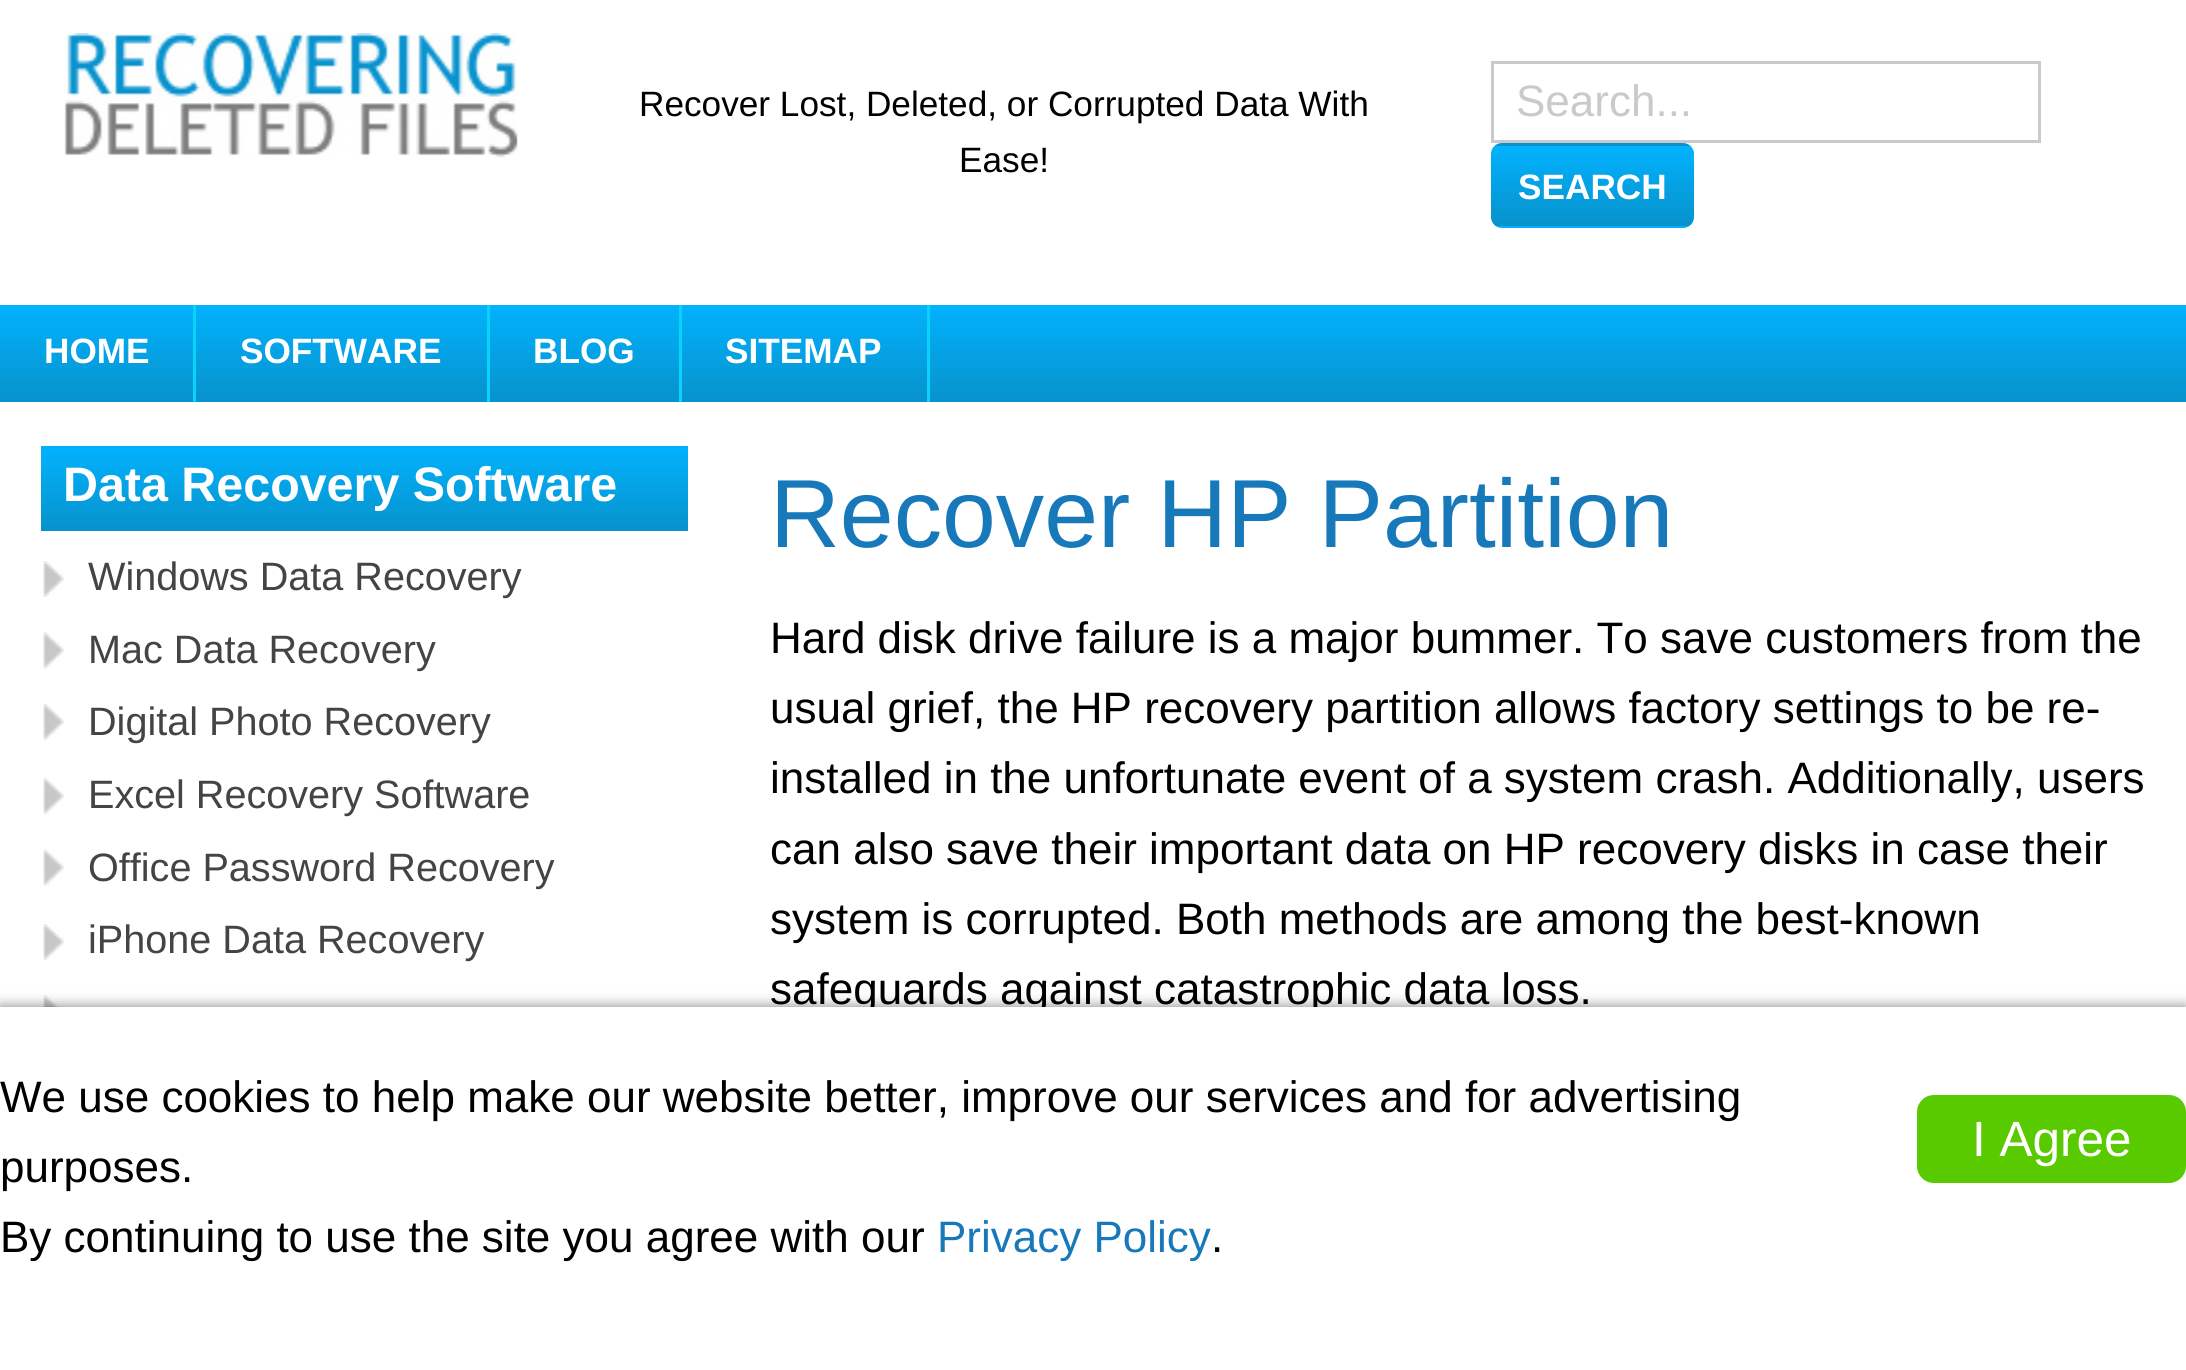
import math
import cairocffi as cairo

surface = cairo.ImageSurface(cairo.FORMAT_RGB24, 2186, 1370)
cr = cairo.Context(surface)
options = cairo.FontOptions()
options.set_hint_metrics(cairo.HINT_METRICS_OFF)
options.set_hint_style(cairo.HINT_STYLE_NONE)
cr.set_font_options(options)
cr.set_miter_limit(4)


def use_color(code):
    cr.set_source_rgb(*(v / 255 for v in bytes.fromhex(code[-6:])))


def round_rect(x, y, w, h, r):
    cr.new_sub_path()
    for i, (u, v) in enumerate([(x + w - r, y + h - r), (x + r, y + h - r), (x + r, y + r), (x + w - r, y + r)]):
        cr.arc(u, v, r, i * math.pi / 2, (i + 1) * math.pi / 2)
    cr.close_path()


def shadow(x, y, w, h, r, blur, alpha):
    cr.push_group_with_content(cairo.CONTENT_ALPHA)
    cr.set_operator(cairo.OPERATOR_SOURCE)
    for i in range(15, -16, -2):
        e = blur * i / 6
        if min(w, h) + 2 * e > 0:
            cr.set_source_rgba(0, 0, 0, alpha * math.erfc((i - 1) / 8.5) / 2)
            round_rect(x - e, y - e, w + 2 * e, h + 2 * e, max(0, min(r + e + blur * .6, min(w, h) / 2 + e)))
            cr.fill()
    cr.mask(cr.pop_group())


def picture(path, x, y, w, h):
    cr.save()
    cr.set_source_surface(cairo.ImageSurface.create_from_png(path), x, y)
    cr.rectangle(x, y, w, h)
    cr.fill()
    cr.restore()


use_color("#ffffff")
cr.paint()
picture("img1.png", 64, 33, 454, 124)
cr.select_font_face("Liberation Sans")
cr.set_font_size(35.2)
use_color("#000000")
cr.move_to(639, 116)
cr.show_text("Recover Lost, Deleted, or Corrupted Data With")
cr.move_to(959, 172)
cr.show_text("Ease!")
cr.rectangle(1492.5, 62.5, 547, 79)
use_color("#cacaca")
cr.set_line_width(3)
cr.stroke()
cr.set_font_size(44)
cr.move_to(1516, 116)
cr.show_text("Search...")
cr.save()
round_rect(1491, 143, 203, 85, 11)
cr.clip()
gradient = cairo.LinearGradient(1592, 66, 1592, 146)
gradient.add_color_stop_rgba(0, 0.008, 0.698, 0.996, 1)
gradient.add_color_stop_rgba(1, 0.027, 0.573, 0.796, 1)
cr.set_source(gradient)
cr.rectangle(1491, 143, 203, 3)
cr.fill()
gradient = cairo.LinearGradient(1592, 146, 1592, 226)
gradient.add_color_stop_rgba(0, 0.008, 0.698, 0.996, 1)
gradient.add_color_stop_rgba(1, 0.027, 0.573, 0.796, 1)
cr.set_source(gradient)
cr.rectangle(1491, 146, 203, 80)
cr.fill()
gradient = cairo.LinearGradient(1592, 226, 1592, 305)
gradient.add_color_stop_rgba(0, 0.008, 0.698, 0.996, 1)
gradient.add_color_stop_rgba(1, 0.027, 0.573, 0.796, 1)
cr.set_source(gradient)
cr.rectangle(1491, 226, 203, 2)
cr.fill()
cr.restore()
cr.select_font_face("Liberation Sans", cairo.FONT_SLANT_NORMAL, cairo.FONT_WEIGHT_BOLD)
cr.set_font_size(35.2)
use_color("#ffffff")
cr.move_to(1518, 199)
cr.show_text("SEARCH")
gradient = cairo.LinearGradient(1093, 305, 1093, 402)
gradient.add_color_stop_rgba(0, 0.008, 0.698, 0.996, 1)
gradient.add_color_stop_rgba(1, 0.027, 0.573, 0.796, 1)
cr.set_source(gradient)
cr.rectangle(0, 305, 2186, 97)
cr.fill()
use_color("#08d3fb")
cr.rectangle(193, 305, 3, 97)
cr.fill()
use_color("#ffffff")
cr.move_to(44, 363)
cr.show_text("HOME")
use_color("#08d3fb")
cr.rectangle(487, 305, 3, 97)
cr.fill()
use_color("#ffffff")
cr.move_to(240, 363)
cr.show_text("SOFTWARE")
use_color("#08d3fb")
cr.rectangle(679, 305, 3, 97)
cr.fill()
use_color("#ffffff")
cr.move_to(533, 363)
cr.show_text("BLOG")
use_color("#08d3fb")
cr.rectangle(927, 305, 3, 97)
cr.fill()
use_color("#ffffff")
cr.move_to(725, 363)
cr.show_text("SITEMAP")
gradient = cairo.LinearGradient(364, 446, 364, 531)
gradient.add_color_stop_rgba(0, 0.008, 0.698, 0.996, 1)
gradient.add_color_stop_rgba(1, 0.027, 0.573, 0.796, 1)
cr.set_source(gradient)
cr.rectangle(41, 446, 647, 85)
cr.fill()
cr.set_font_size(48.4)
use_color("#ffffff")
cr.move_to(63, 501)
cr.show_text("Data Recovery Software")
picture("img2.png", 43, 561, 21, 36)
cr.select_font_face("Liberation Sans")
cr.set_font_size(39.6)
use_color("#444444")
cr.move_to(88, 590)
cr.show_text("Windows Data Recovery")
picture("img3.png", 43, 632, 21, 37)
cr.move_to(88, 663)
cr.show_text("Mac Data Recovery")
picture("img2.png", 43, 704, 21, 36)
cr.move_to(88, 735)
cr.show_text("Digital Photo Recovery")
picture("img4.png", 43, 778, 21, 37)
cr.move_to(88, 808)
cr.show_text("Excel Recovery Software")
picture("img5.png", 43, 849, 21, 37)
cr.move_to(88, 881)
cr.show_text("Office Password Recovery")
picture("img2.png", 43, 924, 21, 36)
cr.move_to(88, 953)
cr.show_text("iPhone Data Recovery")
picture("img6.png", 43, 995, 18, 12)
cr.set_font_size(96.75)
use_color("#1779ba")
cr.move_to(770, 547)
cr.show_text("Recover HP Partition")
cr.set_font_size(44)
use_color("#000000")
cr.move_to(770, 653)
cr.show_text("Hard disk drive failure is a major bummer. To save customers from the")
cr.move_to(770, 723)
cr.show_text("usual grief, the HP recovery partition allows factory settings to be re-")
cr.move_to(770, 793)
cr.show_text("installed in the unfortunate event of a system crash. Additionally, users")
cr.move_to(770, 864)
cr.show_text("can also save their important data on HP recovery disks in case their")
cr.move_to(770, 934)
cr.show_text("system is corrupted. Both methods are among the best-known")
cr.move_to(770, 1004)
cr.show_text("safeguards against catastrophic data loss.")
use_color("#000000")
shadow(0, 1007, 2186, 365, 0, 7, 0.5)
use_color("#ffffff")
cr.rectangle(0, 1007, 2186, 363)
cr.fill()
use_color("#000000")
cr.move_to(0, 1112)
cr.show_text("We use cookies to help make our website better, improve our services and for advertising")
cr.move_to(0, 1182)
cr.show_text("purposes.")
cr.move_to(0, 1252)
cr.show_text("By continuing to use the site you agree with our")
use_color("#1779ba")
cr.move_to(937, 1252)
cr.show_text("Privacy Policy")
use_color("#000000")
cr.move_to(1211, 1252)
cr.show_text(".")
use_color("#5aca00")
round_rect(1917, 1095, 269, 88, 17)
cr.fill()
cr.set_font_size(49.5)
use_color("#ffffff")
cr.move_to(1972, 1156)
cr.show_text("I Agree")
surface.write_to_png("result.png")
